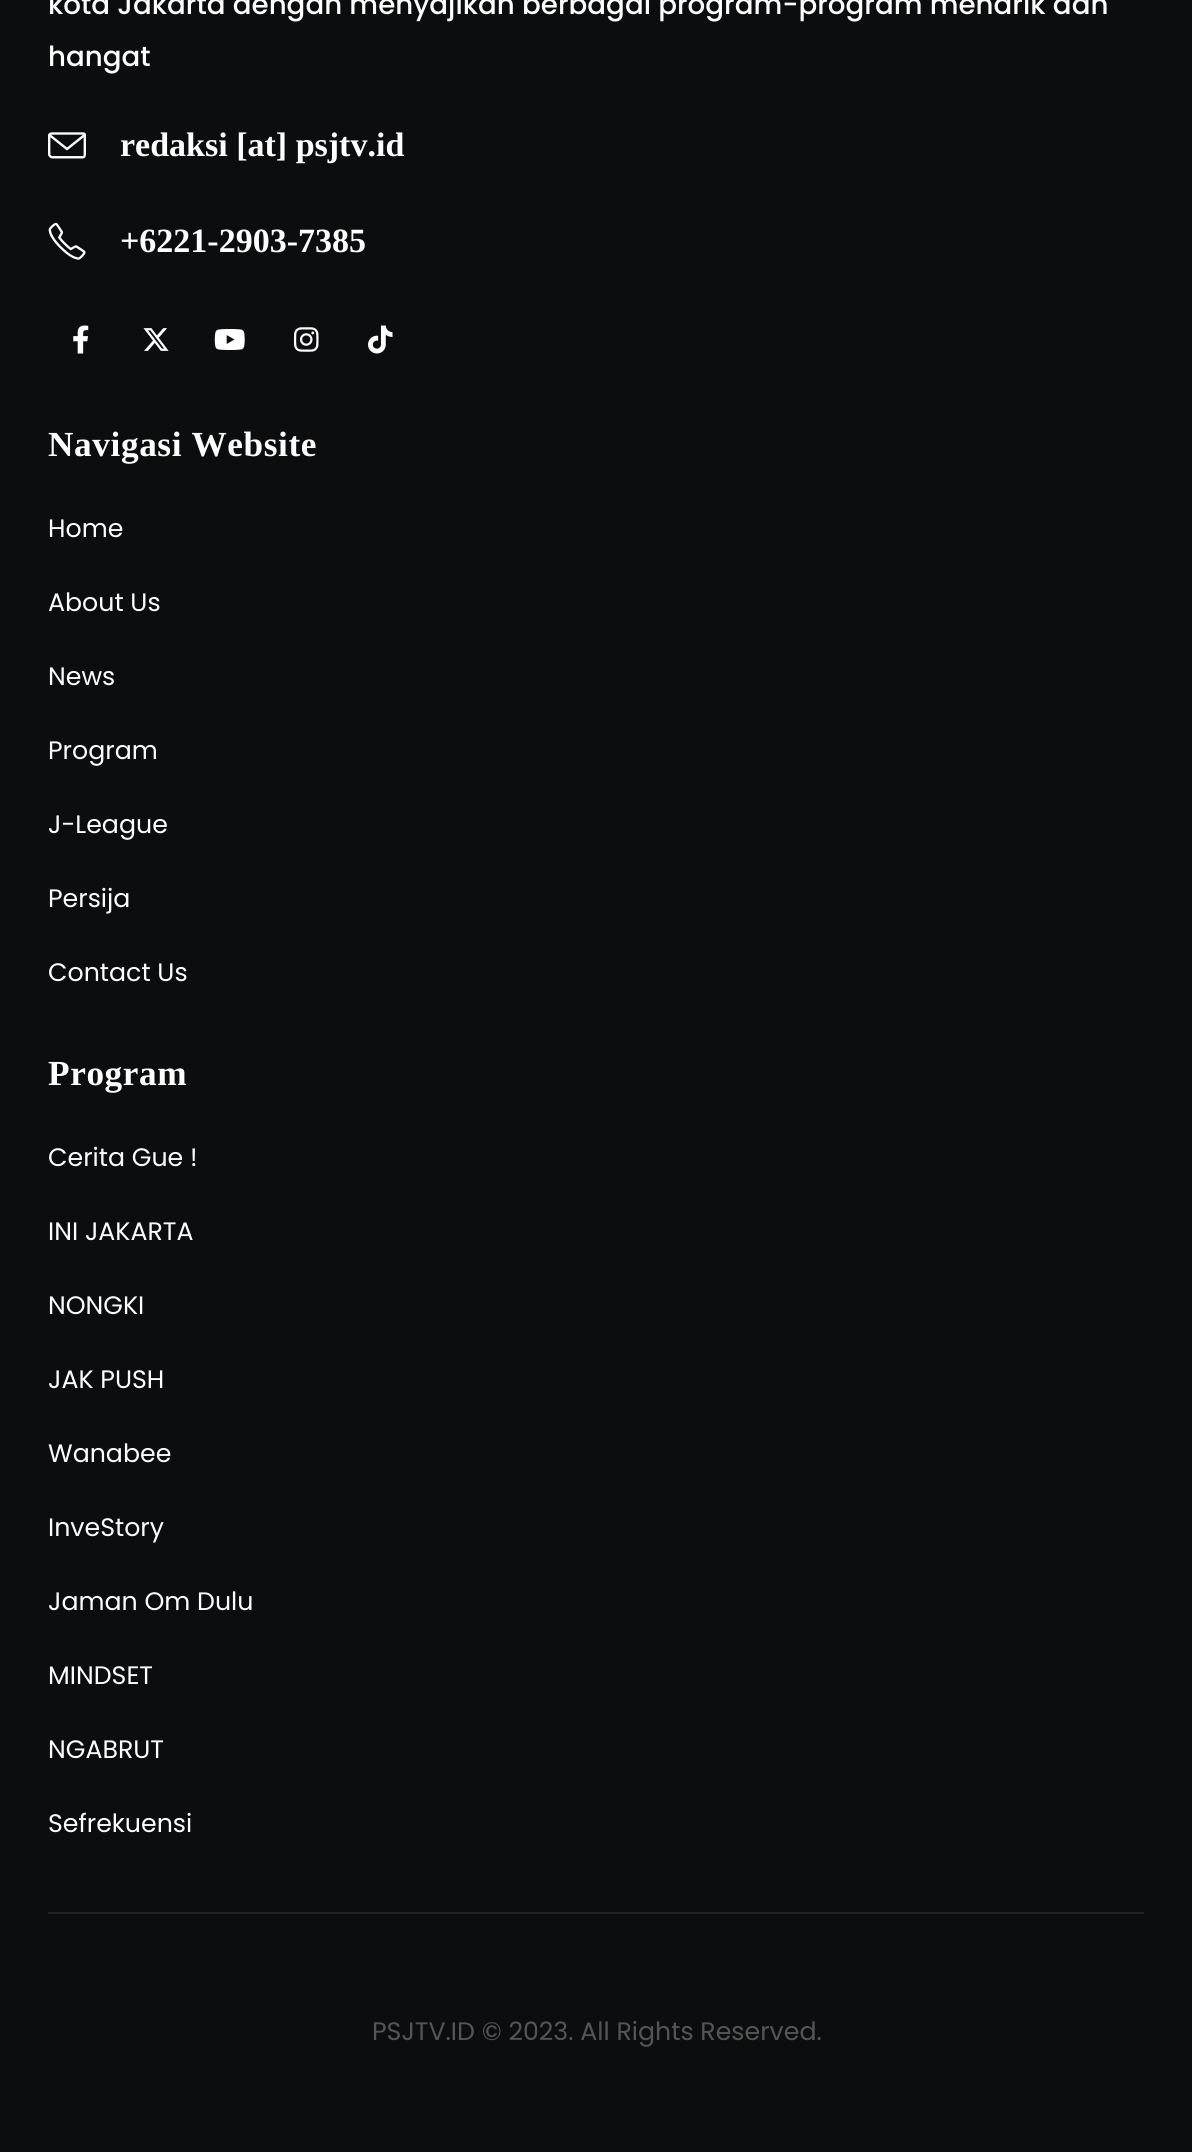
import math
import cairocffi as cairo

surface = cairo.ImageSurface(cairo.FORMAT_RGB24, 1192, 2152)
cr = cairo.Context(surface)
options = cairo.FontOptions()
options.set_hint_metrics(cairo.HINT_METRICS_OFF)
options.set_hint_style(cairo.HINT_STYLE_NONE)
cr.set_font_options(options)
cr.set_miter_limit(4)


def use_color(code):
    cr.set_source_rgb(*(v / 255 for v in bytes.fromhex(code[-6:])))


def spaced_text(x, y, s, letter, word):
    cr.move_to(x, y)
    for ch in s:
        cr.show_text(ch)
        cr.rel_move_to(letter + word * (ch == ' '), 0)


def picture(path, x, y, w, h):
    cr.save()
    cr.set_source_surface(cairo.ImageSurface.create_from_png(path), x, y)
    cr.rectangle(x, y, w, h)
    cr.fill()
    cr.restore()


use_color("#0c0d0e")
cr.paint()
cr.select_font_face("Poppins Medium")
cr.set_font_size(27.7)
use_color("#ffffff")
cr.move_to(48, 14)
cr.show_text("kota Jakarta dengan menyajikan berbagai program-program menarik dan")
cr.move_to(48, 66)
cr.show_text("hangat")
picture("img1.png", 48, 132, 38, 27)
cr.select_font_face("Liberation Serif", cairo.FONT_SLANT_NORMAL, cairo.FONT_WEIGHT_BOLD)
cr.set_font_size(34)
cr.move_to(120, 156)
cr.show_text("redaksi [at] psjtv.id")
picture("img2.png", 48, 222, 38, 38)
cr.move_to(120, 252)
cr.show_text("+6221-2903-7385")
picture("img3.png", 73, 325, 16, 29)
picture("img4.png", 143, 328, 26, 23)
picture("img5.png", 214, 329, 31, 21)
picture("img6.png", 294, 327, 25, 25)
picture("img7.png", 368, 325, 25, 29)
cr.set_font_size(35.25)
spaced_text(48, 456, "Navigasi Website", 0.6, 0)
cr.select_font_face("Poppins")
cr.set_font_size(25.25)
cr.move_to(48, 537)
cr.show_text("Home")
cr.move_to(48, 611)
cr.show_text("About Us")
cr.move_to(48, 685)
cr.show_text("News")
cr.move_to(48, 759)
cr.show_text("Program")
cr.move_to(48, 833)
cr.show_text("J-League")
cr.move_to(48, 907)
cr.show_text("Persija")
cr.move_to(48, 981)
cr.show_text("Contact Us")
cr.select_font_face("Liberation Serif", cairo.FONT_SLANT_NORMAL, cairo.FONT_WEIGHT_BOLD)
cr.set_font_size(35.25)
spaced_text(48, 1085, "Program", 0.6, 0)
cr.select_font_face("Poppins")
cr.set_font_size(25.25)
cr.move_to(48, 1166)
cr.show_text("Cerita Gue !")
cr.move_to(48, 1240)
cr.show_text("INI JAKARTA")
cr.move_to(48, 1314)
cr.show_text("NONGKI")
cr.move_to(48, 1388)
cr.show_text("JAK PUSH")
cr.move_to(48, 1462)
cr.show_text("Wanabee")
cr.move_to(48, 1536)
cr.show_text("InveStory")
cr.move_to(48, 1610)
cr.show_text("Jaman Om Dulu")
cr.move_to(48, 1684)
cr.show_text("MINDSET")
cr.move_to(48, 1758)
cr.show_text("NGABRUT")
cr.move_to(48, 1832)
cr.show_text("Sefrekuensi")
use_color("#242526")
cr.rectangle(48, 1912, 1096, 2)
cr.fill()
use_color("#555555")
cr.move_to(372, 2040)
cr.show_text("PSJTV.ID © 2023. All Rights Reserved.")
surface.write_to_png("result.png")
